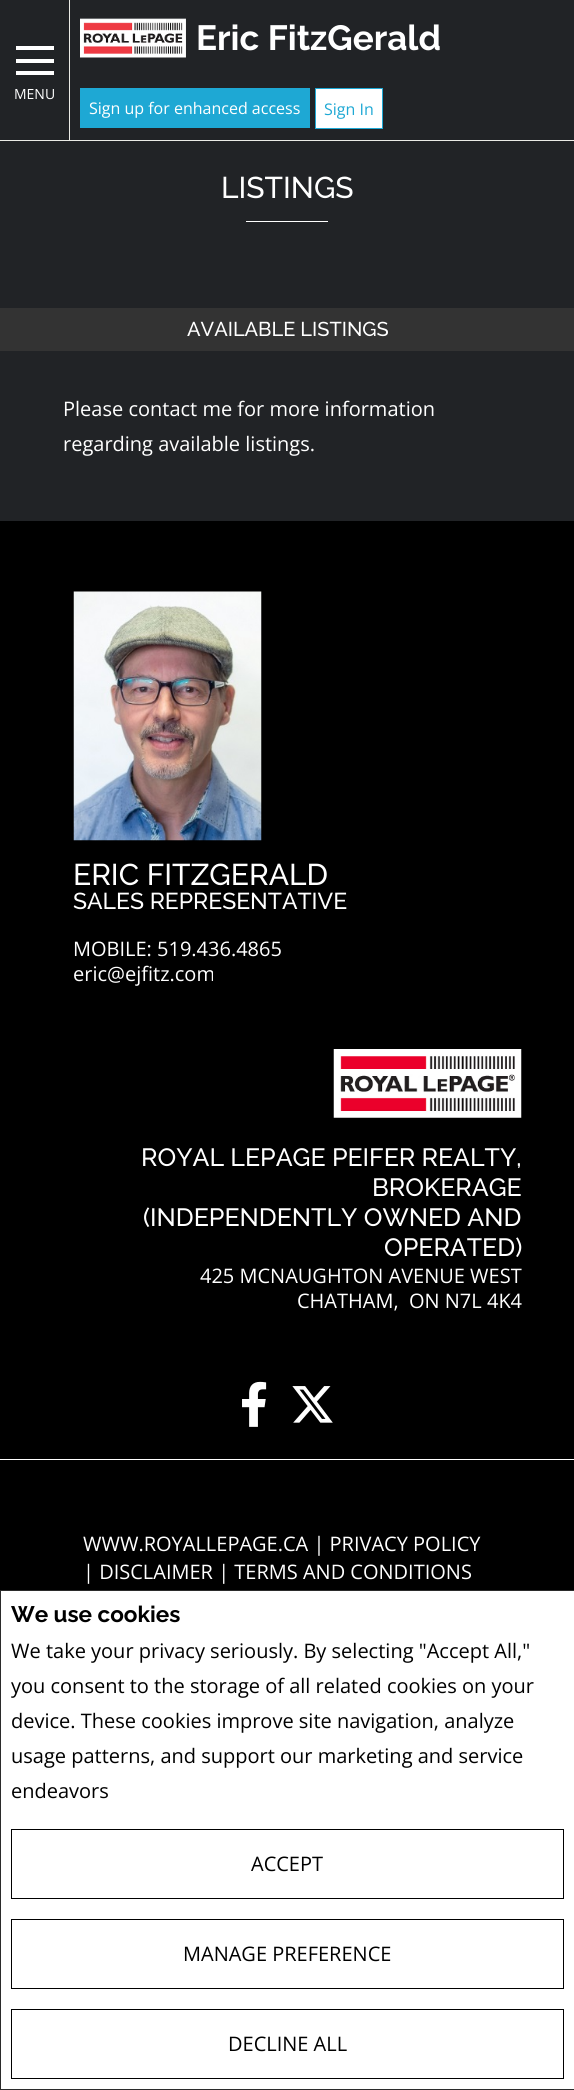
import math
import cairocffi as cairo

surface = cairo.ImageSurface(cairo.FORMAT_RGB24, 574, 2090)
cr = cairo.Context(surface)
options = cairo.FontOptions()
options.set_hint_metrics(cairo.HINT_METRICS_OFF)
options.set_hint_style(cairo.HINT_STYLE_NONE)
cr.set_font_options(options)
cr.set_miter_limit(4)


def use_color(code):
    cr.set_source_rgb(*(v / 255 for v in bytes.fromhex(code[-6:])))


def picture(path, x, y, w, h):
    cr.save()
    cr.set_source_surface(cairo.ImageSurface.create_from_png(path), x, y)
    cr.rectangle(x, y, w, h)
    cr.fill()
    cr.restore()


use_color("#212326")
cr.paint()
use_color("#ebebe6")
cr.rectangle(69, 0, 1, 140)
cr.fill()
use_color("#ffffff")
cr.rectangle(16, 46, 38, 4)
cr.fill()
cr.rectangle(16, 59, 38, 4)
cr.fill()
cr.rectangle(16, 71, 38, 4)
cr.fill()
cr.select_font_face("Open Sans")
cr.set_font_size(14)
cr.move_to(14, 99)
cr.show_text("MENU")
use_color("#ebebe6")
cr.rectangle(0, 140, 574, 1)
cr.fill()
picture("img1.png", 80, 18, 106, 40)
cr.select_font_face("Raleway", cairo.FONT_SLANT_NORMAL, cairo.FONT_WEIGHT_BOLD)
cr.set_font_size(35)
use_color("#ffffff")
cr.move_to(196, 50)
cr.show_text("Eric FitzGerald")
use_color("#1ea8d4")
cr.rectangle(80, 88, 230, 40)
cr.fill()
cr.select_font_face("Open Sans")
cr.set_font_size(16)
use_color("#ffffff")
cr.move_to(89, 114)
cr.show_text("Sign up for enhanced access")
cr.rectangle(315.5, 88.5, 67, 40)
cr.fill_preserve()
use_color("#1ea8d4")
cr.set_line_width(1)
cr.stroke()
cr.move_to(324, 115)
cr.show_text("Sign In")
cr.select_font_face("Raleway Medium")
cr.set_font_size(30)
use_color("#ffffff")
cr.move_to(221, 198)
cr.show_text("LISTINGS")
cr.rectangle(246, 221, 82, 1)
cr.fill()
use_color("#333333")
cr.rectangle(0, 308, 574, 43)
cr.fill()
cr.set_font_size(20)
use_color("#ffffff")
cr.move_to(187, 336)
cr.show_text("AVAILABLE LISTINGS")
cr.select_font_face("Open Sans")
cr.move_to(63, 416)
cr.show_text("Please contact me for more information")
cr.move_to(63, 451)
cr.show_text("regarding available listings.")
use_color("#000000")
cr.rectangle(0, 521, 574, 938)
cr.fill()
picture("img2.png", 73, 591, 189, 250)
cr.select_font_face("Raleway Medium")
cr.set_font_size(30)
use_color("#ffffff")
cr.move_to(73, 885)
cr.show_text("ERIC FITZGERALD")
cr.set_font_size(23)
cr.move_to(73, 909)
cr.show_text("SALES REPRESENTATIVE")
cr.select_font_face("Open Sans")
cr.set_font_size(20)
cr.move_to(73, 956)
cr.show_text("MOBILE: 519.436.4865")
cr.move_to(73, 981)
cr.show_text("eric@ejfitz.com")
picture("img3.png", 333, 1049, 189, 69)
cr.select_font_face("Raleway Medium")
cr.set_font_size(25)
cr.move_to(141, 1166)
cr.show_text("ROYAL LEPAGE PEIFER REALTY,")
cr.move_to(372, 1196)
cr.show_text("BROKERAGE")
cr.move_to(143, 1226)
cr.show_text("(INDEPENDENTLY OWNED AND")
cr.move_to(384, 1256)
cr.show_text("OPERATED)")
cr.select_font_face("Open Sans")
cr.set_font_size(20)
cr.move_to(200, 1283)
cr.show_text("425 MCNAUGHTON AVENUE WEST")
cr.move_to(297, 1308)
cr.show_text("CHATHAM,")
cr.move_to(409, 1308)
cr.show_text("ON N7L 4K4")
cr.rectangle(0, 1459, 574, 1)
cr.fill()
picture("img4.png", 242, 1381, 25, 46)
picture("img5.png", 292, 1386, 41, 37)
use_color("#000000")
cr.rectangle(0, 1460, 574, 130)
cr.fill()
use_color("#ffffff")
cr.move_to(83, 1551)
cr.show_text("WWW.ROYALLEPAGE.CA | PRIVACY POLICY")
cr.move_to(83, 1579)
cr.show_text("| DISCLAIMER | TERMS AND CONDITIONS")
cr.rectangle(0.5, 1590.5, 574, 499)
cr.fill_preserve()
use_color("#2b2b2b")
cr.stroke()
cr.select_font_face("Raleway", cairo.FONT_SLANT_NORMAL, cairo.FONT_WEIGHT_BOLD)
cr.set_font_size(22.5)
use_color("#000000")
cr.move_to(11, 1622)
cr.show_text("We use cookies")
cr.select_font_face("Open Sans")
cr.set_font_size(20)
cr.move_to(11, 1658)
cr.show_text("We take your privacy seriously. By selecting \"Accept All,\"")
cr.move_to(11, 1693)
cr.show_text("you consent to the storage of all related cookies on your")
cr.move_to(11, 1728)
cr.show_text("device. These cookies improve site navigation, analyze")
cr.move_to(11, 1763)
cr.show_text("usage patterns, and support our marketing and service")
cr.move_to(11, 1798)
cr.show_text("endeavors")
cr.rectangle(11.5, 1829.5, 552, 69)
cr.stroke()
cr.move_to(251, 1871)
cr.show_text("ACCEPT")
cr.rectangle(11.5, 1919.5, 552, 69)
cr.stroke()
cr.move_to(183, 1961)
cr.show_text("MANAGE PREFERENCE")
cr.rectangle(11.5, 2009.5, 552, 69)
cr.stroke()
cr.move_to(228, 2051)
cr.show_text("DECLINE ALL")
surface.write_to_png("result.png")
